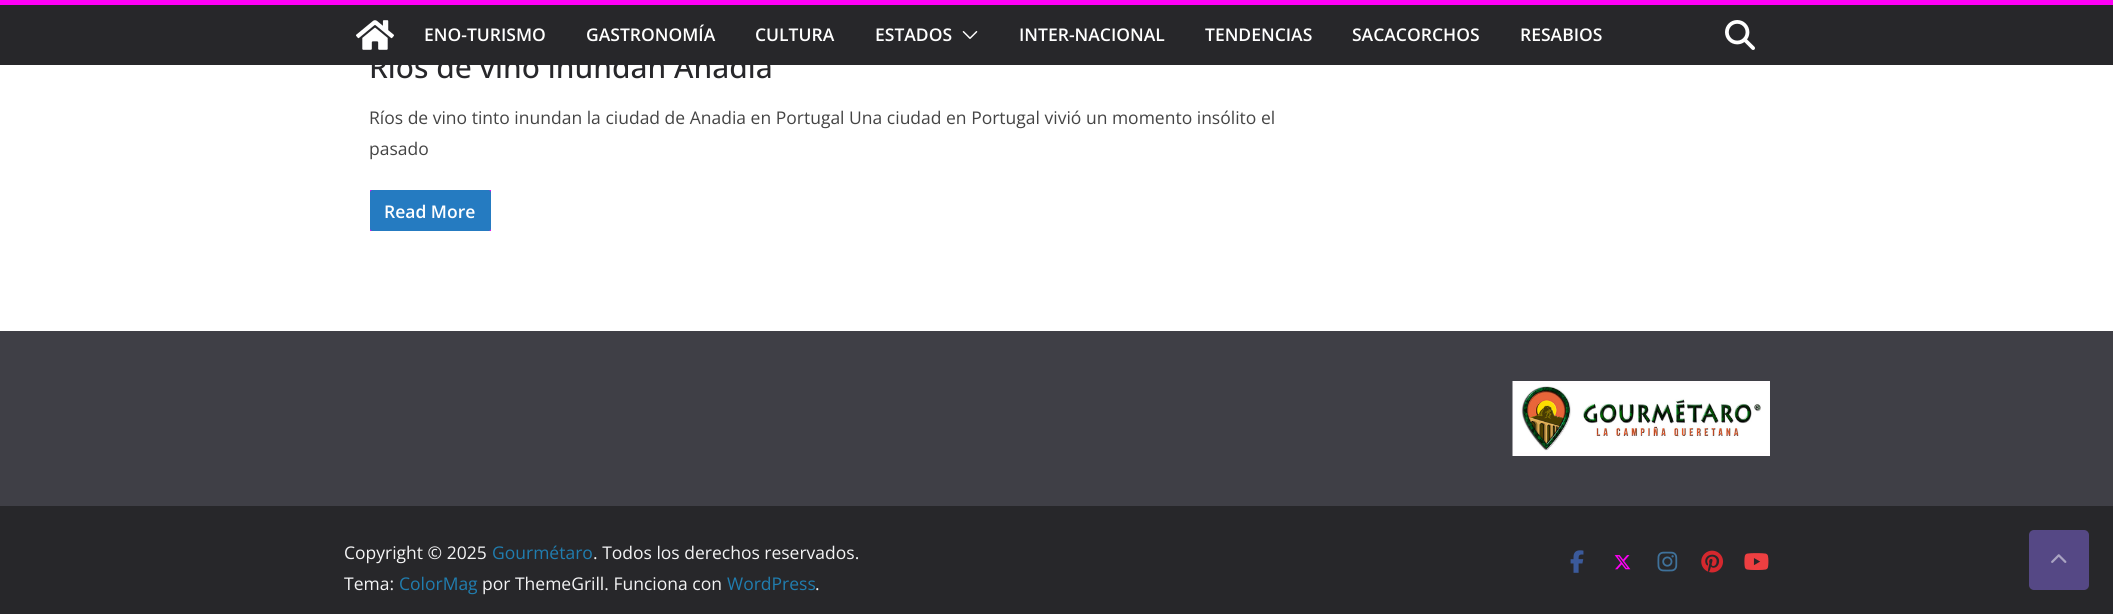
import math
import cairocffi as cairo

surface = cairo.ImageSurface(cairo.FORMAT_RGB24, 2113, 614)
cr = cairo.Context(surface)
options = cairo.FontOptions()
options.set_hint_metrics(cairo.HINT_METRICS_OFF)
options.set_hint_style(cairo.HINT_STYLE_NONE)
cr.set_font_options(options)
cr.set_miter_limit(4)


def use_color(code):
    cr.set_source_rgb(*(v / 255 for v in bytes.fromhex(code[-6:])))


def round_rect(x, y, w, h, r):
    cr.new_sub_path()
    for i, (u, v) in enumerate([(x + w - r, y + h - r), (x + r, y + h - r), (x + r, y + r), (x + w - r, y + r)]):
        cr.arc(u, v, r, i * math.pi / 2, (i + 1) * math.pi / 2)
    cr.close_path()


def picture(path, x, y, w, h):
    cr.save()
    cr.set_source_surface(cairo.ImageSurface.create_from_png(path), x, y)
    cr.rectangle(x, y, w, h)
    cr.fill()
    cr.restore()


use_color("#ffffff")
cr.paint()
use_color("#27272a")
cr.rectangle(0, 5, 2113, 60)
cr.fill()
use_color("#ff00f6")
cr.rectangle(0, 0, 2113, 5)
cr.fill()
picture("img1.png", 356, 20, 38, 30)
cr.select_font_face("Open Sans SemiBold")
cr.set_font_size(17.5)
use_color("#ffffff")
cr.move_to(424, 41)
cr.show_text("ENO-TURISMO")
cr.move_to(586, 41)
cr.show_text("GASTRONOMÍA")
cr.move_to(755, 41)
cr.show_text("CULTURA")
cr.move_to(875, 41)
cr.show_text("ESTADOS")
picture("img2.png", 962, 31, 16, 8)
cr.move_to(1019, 41)
cr.show_text("INTER-NACIONAL")
cr.move_to(1205, 41)
cr.show_text("TENDENCIAS")
cr.move_to(1352, 41)
cr.show_text("SACACORCHOS")
cr.move_to(1520, 41)
cr.show_text("RESABIOS")
picture("img3.png", 1725, 20, 30, 30)
cr.select_font_face("Open Sans Medium")
cr.set_font_size(30)
use_color("#27272a")
cr.move_to(369, 78)
cr.show_text("Rios de vino inundan Anadia")
cr.select_font_face("Open Sans")
cr.set_font_size(17.5)
use_color("#444444")
cr.move_to(369, 124)
cr.show_text("Ríos de vino tinto inundan la ciudad de Anadia en Portugal Una ciudad en Portugal vivió un momento insólito el")
cr.move_to(369, 155)
cr.show_text("pasado")
use_color("#ff00f6")
cr.rectangle(370, 190, 121, 41)
cr.fill()
use_color("#257bc1")
round_rect(370, 190, 121, 41, 2.5)
cr.fill()
cr.select_font_face("Open Sans SemiBold")
use_color("#ffffff")
cr.move_to(384, 218)
cr.show_text("Read More")
use_color("#3f3f46")
cr.rectangle(0, 331, 2113, 175)
cr.fill()
picture("img4.png", 1512, 381, 258, 75)
use_color("#27272a")
cr.rectangle(0, 506, 2113, 108)
cr.fill()
cr.select_font_face("Open Sans")
use_color("#f4f4f5")
cr.move_to(344, 559)
cr.show_text("Copyright © 2025")
use_color("#207daf")
cr.move_to(492, 559)
cr.show_text("Gourmétaro")
use_color("#f4f4f5")
cr.move_to(593, 559)
cr.show_text(". Todos los derechos reservados.")
cr.move_to(344, 590)
cr.show_text("Tema:")
use_color("#207daf")
cr.move_to(399, 590)
cr.show_text("ColorMag")
use_color("#f4f4f5")
cr.move_to(482, 590)
cr.show_text("por ThemeGrill. Funciona con")
use_color("#207daf")
cr.move_to(727, 590)
cr.show_text("WordPress")
use_color("#f4f4f5")
cr.move_to(815, 590)
cr.show_text(".")
picture("img5.png", 1570, 550, 14, 23)
picture("img6.png", 1614, 555, 17, 15)
picture("img7.png", 1657, 551, 21, 21)
picture("img8.png", 1701, 550, 23, 23)
picture("img9.png", 1744, 553, 25, 17)
use_color("#554885")
round_rect(2029, 530, 60, 60, 5)
cr.fill()
picture("img10.png", 2051, 554, 16, 9)
surface.write_to_png("result.png")
